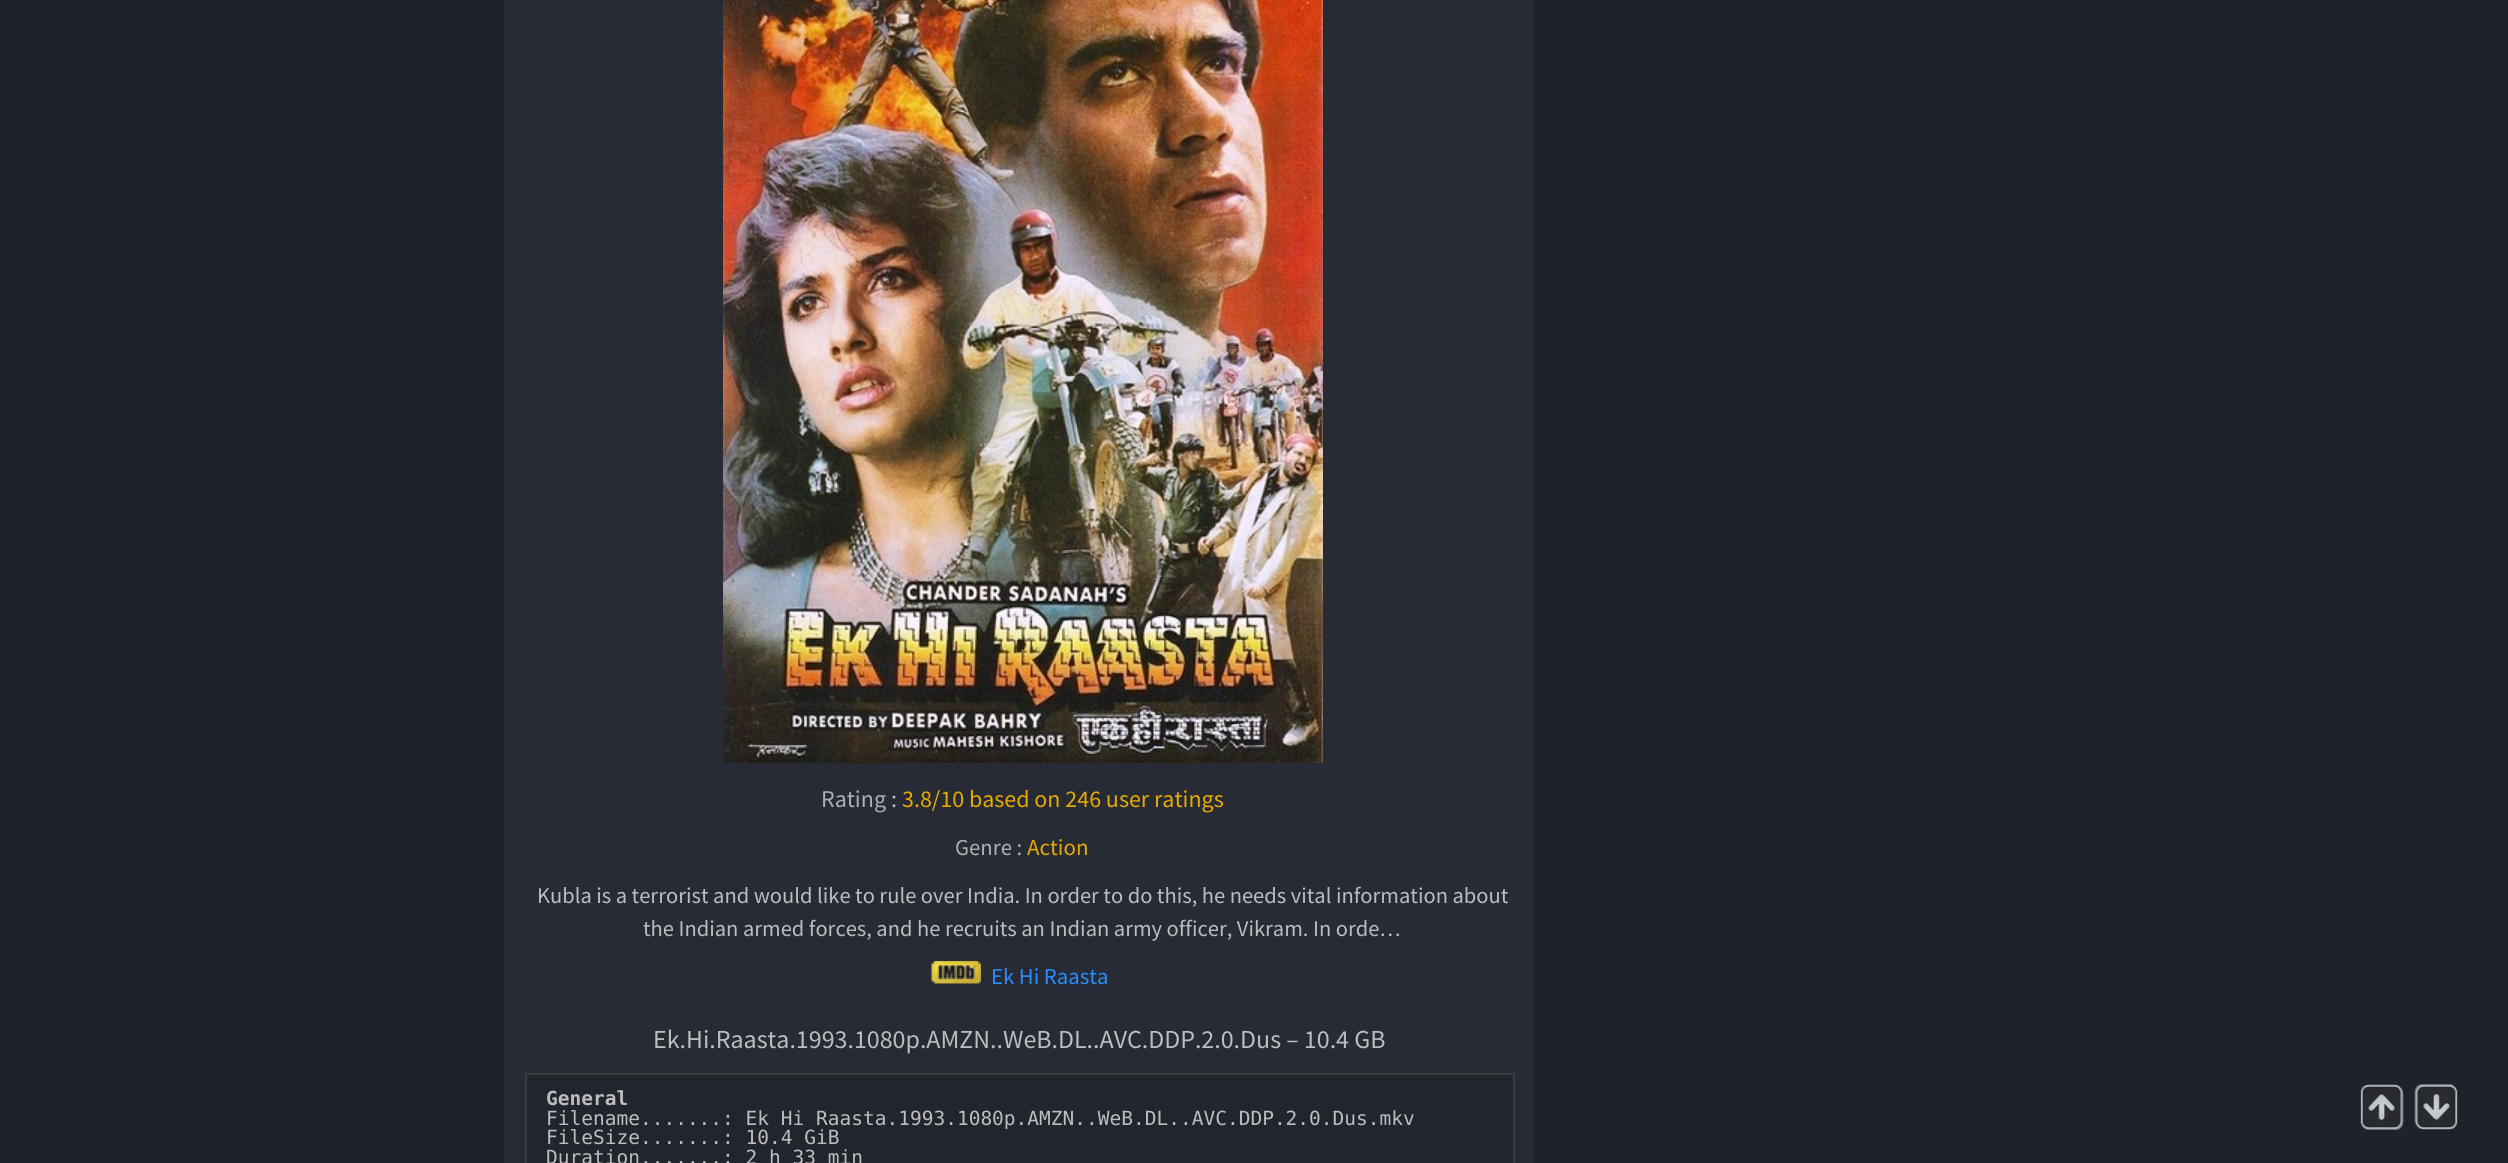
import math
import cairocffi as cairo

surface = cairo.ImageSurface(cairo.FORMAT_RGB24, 2508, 1163)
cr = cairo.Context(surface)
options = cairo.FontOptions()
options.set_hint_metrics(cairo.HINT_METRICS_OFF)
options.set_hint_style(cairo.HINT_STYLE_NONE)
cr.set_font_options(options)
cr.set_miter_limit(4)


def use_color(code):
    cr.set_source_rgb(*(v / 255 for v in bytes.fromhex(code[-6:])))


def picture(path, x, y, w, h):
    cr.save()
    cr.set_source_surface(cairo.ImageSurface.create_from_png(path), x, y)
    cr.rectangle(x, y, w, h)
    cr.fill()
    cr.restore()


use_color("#1e222b")
cr.paint()
use_color("#262b36")
cr.rectangle(504, 0, 1029, 1163)
cr.fill()
picture("img1.png", 723, 0, 600, 763)
cr.select_font_face("Source Sans Pro")
cr.set_font_size(24)
use_color("#afafaf")
cr.move_to(821, 807)
cr.show_text("Rating")
use_color("#bdbdbd")
cr.move_to(891, 807)
cr.show_text(":")
use_color("#e7aa00")
cr.move_to(902, 807)
cr.show_text("3.8/10 based on 246 user ratings")
cr.set_font_size(22.75)
use_color("#afafaf")
cr.move_to(955, 855)
cr.show_text("Genre :")
cr.set_font_size(23)
use_color("#e7aa00")
cr.move_to(1027, 855)
cr.show_text("Action")
cr.set_font_size(22.5)
use_color("#bdbdbd")
cr.move_to(537, 903)
cr.show_text("Kubla is a terrorist and would like to rule over India. In order to do this, he needs vital information about")
cr.move_to(643, 936)
cr.show_text("the Indian armed forces, and he recruits an Indian army officer, Vikram. In orde…")
picture("img2.png", 931, 961, 50, 23)
cr.set_font_size(22.75)
use_color("#288dff")
cr.move_to(991, 984)
cr.show_text("Ek Hi Raasta")
cr.set_font_size(25.95)
use_color("#bdbdbd")
cr.move_to(653, 1048)
cr.show_text("Ek.Hi.Raasta.1993.1080p.AMZN..WeB.DL..AVC.DDP.2.0.Dus – 10.4 GB")
use_color("#21252e")
cr.rectangle(526, 1074, 988, 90)
cr.fill_preserve()
use_color("#3c3c3c")
cr.stroke()
cr.select_font_face("DejaVu Sans Mono", cairo.FONT_SLANT_NORMAL, cairo.FONT_WEIGHT_BOLD)
cr.set_font_size(19.5)
use_color("#bdbdbd")
cr.move_to(546, 1105)
cr.show_text("General")
cr.select_font_face("DejaVu Sans Mono")
cr.move_to(546, 1125)
cr.show_text("Filename.......: Ek Hi Raasta.1993.1080p.AMZN..WeB.DL..AVC.DDP.2.0.Dus.mkv")
cr.move_to(546, 1144)
cr.show_text("FileSize.......: 10.4 GiB")
cr.move_to(546, 1164)
cr.show_text("Duration.......: 2 h 33 min")
picture("img3.png", 2360, 1084, 44, 46)
picture("img4.png", 2414, 1084, 44, 46)
surface.write_to_png("result.png")
